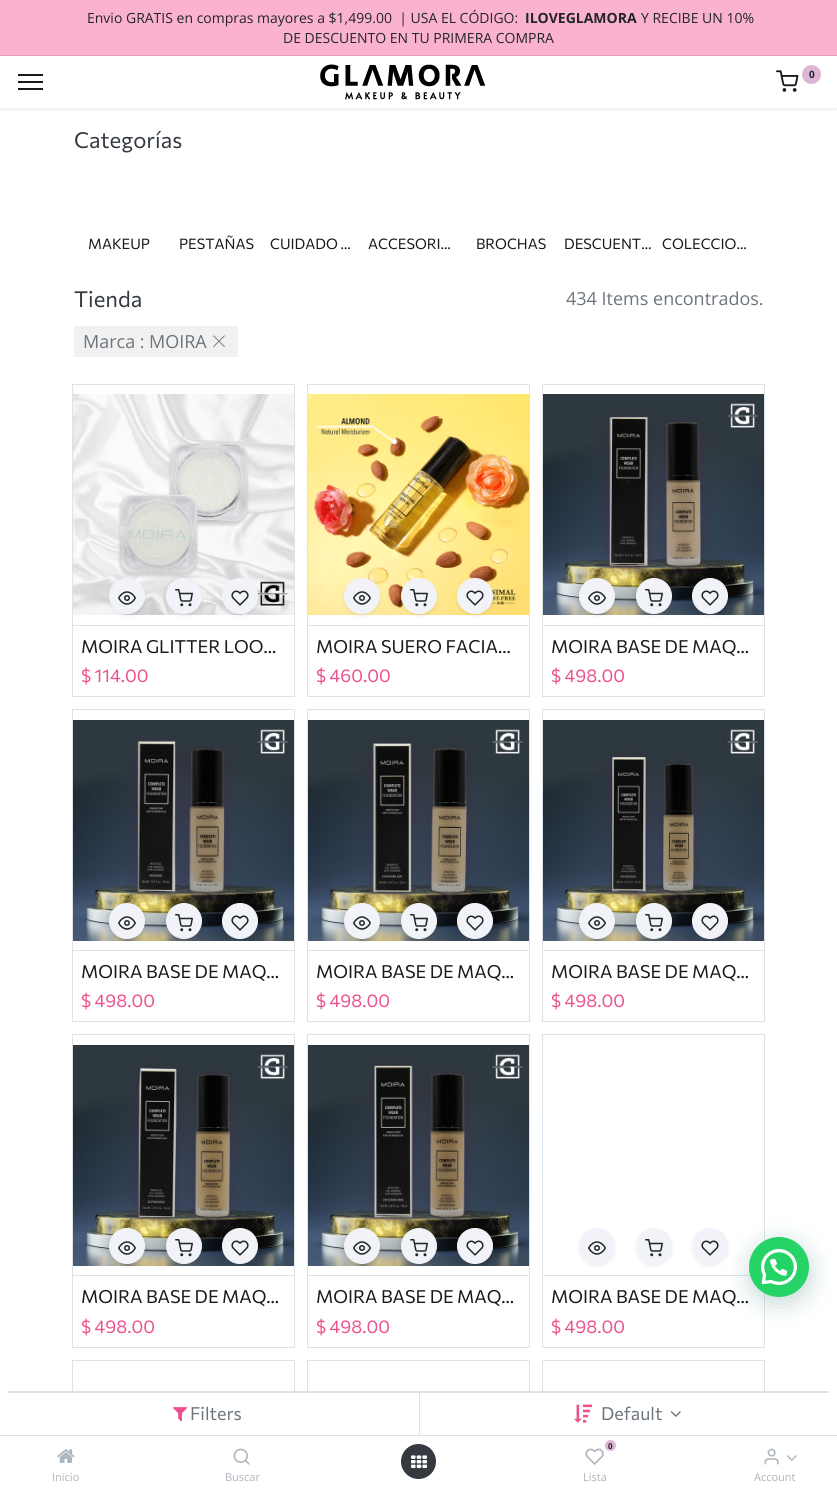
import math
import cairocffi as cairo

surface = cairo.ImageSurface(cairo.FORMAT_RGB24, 837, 1491)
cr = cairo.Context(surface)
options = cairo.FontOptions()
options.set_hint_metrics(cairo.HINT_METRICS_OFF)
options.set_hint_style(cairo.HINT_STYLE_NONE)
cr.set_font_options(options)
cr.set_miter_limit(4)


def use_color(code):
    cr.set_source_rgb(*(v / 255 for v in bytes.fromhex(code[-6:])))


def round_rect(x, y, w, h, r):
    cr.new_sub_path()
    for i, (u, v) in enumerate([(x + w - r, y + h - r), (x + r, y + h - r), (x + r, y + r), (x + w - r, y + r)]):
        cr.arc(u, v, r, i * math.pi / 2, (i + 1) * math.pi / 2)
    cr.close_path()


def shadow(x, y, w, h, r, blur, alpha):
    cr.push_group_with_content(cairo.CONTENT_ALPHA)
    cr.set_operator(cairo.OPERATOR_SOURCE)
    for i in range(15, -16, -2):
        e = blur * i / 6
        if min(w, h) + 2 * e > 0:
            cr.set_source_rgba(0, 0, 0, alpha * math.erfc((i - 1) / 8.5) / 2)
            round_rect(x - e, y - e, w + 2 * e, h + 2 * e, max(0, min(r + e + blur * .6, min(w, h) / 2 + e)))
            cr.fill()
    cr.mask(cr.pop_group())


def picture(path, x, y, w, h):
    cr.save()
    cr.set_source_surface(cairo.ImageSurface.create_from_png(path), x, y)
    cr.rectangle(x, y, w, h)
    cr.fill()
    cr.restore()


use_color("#ffffff")
cr.paint()
use_color("#fbb2d1")
cr.rectangle(0, 0, 837, 55)
cr.fill()
use_color("#e1a1bd")
cr.rectangle(0, 55, 837, 1)
cr.fill()
cr.select_font_face("Open Sans")
cr.set_font_size(14)
use_color("#212529")
cr.move_to(87, 23)
cr.show_text("Envio GRATIS en compras mayores a $1,499.00  | USA EL CÓDIGO:")
cr.select_font_face("Open Sans", cairo.FONT_SLANT_NORMAL, cairo.FONT_WEIGHT_BOLD)
cr.move_to(525, 23)
cr.show_text("ILOVEGLAMORA")
cr.select_font_face("Open Sans")
cr.move_to(641, 23)
cr.show_text("Y RECIBE UN 10%")
cr.move_to(283, 43)
cr.show_text("DE DESCUENTO EN TU PRIMERA COMPRA")
cr.save()
cr.rectangle(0, 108, 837, 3)
cr.clip()
use_color("#000000")
shadow(0, 58, 837, 52, 0, 2, 0.07)
cr.restore()
use_color("#1a191a")
cr.rectangle(18, 74, 25, 2)
cr.fill()
cr.rectangle(18, 81, 25, 2)
cr.fill()
cr.rectangle(18, 88, 25, 2)
cr.fill()
picture("img1.png", 320, 64, 166, 36)
picture("img2.png", 776, 70, 23, 22)
use_color("#dfb5d5")
cr.arc(811.5, 74.5, 9.5, 0, 2 * math.pi)
cr.fill()
cr.select_font_face("Open Sans", cairo.FONT_SLANT_NORMAL, cairo.FONT_WEIGHT_BOLD)
cr.set_font_size(10)
use_color("#212529")
cr.move_to(809, 78)
cr.show_text("0")
cr.select_font_face("Commissioner")
cr.set_font_size(22)
use_color("#343a40")
cr.move_to(74, 148)
cr.show_text("Categorías")
cr.set_font_size(14.5)
use_color("#1a191a")
cr.move_to(88, 249)
cr.show_text("MAKEUP")
cr.move_to(179, 249)
cr.show_text("PESTAÑAS")
cr.move_to(270, 249)
cr.show_text("CUIDADO …")
cr.move_to(368, 249)
cr.show_text("ACCESORI…")
cr.move_to(476, 249)
cr.show_text("BROCHAS")
cr.move_to(564, 249)
cr.show_text("DESCUENT…")
cr.move_to(662, 249)
cr.show_text("COLECCIO…")
cr.set_font_size(22)
use_color("#343a40")
cr.move_to(74, 307)
cr.show_text("Tienda")
cr.select_font_face("Open Sans")
cr.set_font_size(18)
use_color("#6c757d")
cr.move_to(566, 305)
cr.show_text("434 Items encontrados.")
use_color("#f1f1f1")
cr.rectangle(74, 326, 164, 31)
cr.fill()
use_color("#6c757d")
cr.move_to(83, 348)
cr.show_text("Marca :")
cr.move_to(149, 348)
cr.show_text("MOIRA")
picture("img3.png", 213, 335, 12, 13)
cr.rectangle(72.5, 384.5, 222, 312)
use_color("#dee2e6")
cr.set_line_width(1)
cr.stroke()
picture("img4.png", 73, 394, 221, 221)
cr.rectangle(73, 625, 221, 1)
cr.fill()
use_color("#000000")
shadow(109, 580, 36, 36, 18, 2, 0.07)
use_color("#f1f3f8")
cr.arc(127, 596, 17.5, 0, 2 * math.pi)
cr.fill_preserve()
cr.stroke()
picture("img5.png", 118, 591, 18, 14)
use_color("#000000")
shadow(166, 580, 36, 36, 18, 2, 0.07)
use_color("#f1f3f8")
cr.arc(184, 596, 17.5, 0, 2 * math.pi)
cr.fill_preserve()
cr.stroke()
picture("img6.png", 175, 589, 18, 18)
use_color("#000000")
shadow(222, 580, 36, 36, 18, 2, 0.07)
use_color("#f1f3f8")
cr.arc(240, 596, 17.5, 0, 2 * math.pi)
cr.fill_preserve()
cr.stroke()
picture("img7.png", 231, 590, 18, 16)
cr.select_font_face("Commissioner")
use_color("#1a191a")
cr.move_to(81, 653)
cr.show_text("MOIRA GLITTER LOO…")
use_color("#ee4f8d")
cr.move_to(81, 682)
cr.show_text("$ 114.00")
cr.rectangle(307.5, 384.5, 222, 312)
use_color("#dee2e6")
cr.stroke()
picture("img8.png", 308, 394, 221, 221)
cr.rectangle(308, 625, 221, 1)
cr.fill()
use_color("#000000")
shadow(344, 580, 36, 36, 18, 2, 0.07)
use_color("#f1f3f8")
cr.arc(362, 596, 17.5, 0, 2 * math.pi)
cr.fill_preserve()
cr.stroke()
picture("img5.png", 353, 591, 18, 14)
use_color("#000000")
shadow(401, 580, 36, 36, 18, 2, 0.07)
use_color("#f1f3f8")
cr.arc(419, 596, 17.5, 0, 2 * math.pi)
cr.fill_preserve()
cr.stroke()
picture("img6.png", 410, 589, 18, 18)
use_color("#000000")
shadow(457, 580, 36, 36, 18, 2, 0.07)
use_color("#f1f3f8")
cr.arc(475, 596, 17.5, 0, 2 * math.pi)
cr.fill_preserve()
cr.stroke()
picture("img7.png", 466, 590, 18, 16)
use_color("#1a191a")
cr.move_to(316, 653)
cr.show_text("MOIRA SUERO FACIA…")
use_color("#ee4f8d")
cr.move_to(316, 682)
cr.show_text("$ 460.00")
cr.rectangle(542.5, 384.5, 222, 312)
use_color("#dee2e6")
cr.stroke()
picture("img9.png", 543, 394, 221, 221)
cr.rectangle(543, 625, 221, 1)
cr.fill()
use_color("#000000")
shadow(579, 580, 36, 36, 18, 2, 0.07)
use_color("#f1f3f8")
cr.arc(597, 596, 17.5, 0, 2 * math.pi)
cr.fill_preserve()
cr.stroke()
picture("img5.png", 588, 591, 18, 14)
use_color("#000000")
shadow(636, 580, 36, 36, 18, 2, 0.07)
use_color("#f1f3f8")
cr.arc(654, 596, 17.5, 0, 2 * math.pi)
cr.fill_preserve()
cr.stroke()
picture("img6.png", 645, 589, 18, 18)
use_color("#000000")
shadow(692, 580, 36, 36, 18, 2, 0.07)
use_color("#f1f3f8")
cr.arc(710, 596, 17.5, 0, 2 * math.pi)
cr.fill_preserve()
cr.stroke()
picture("img7.png", 701, 590, 18, 16)
use_color("#1a191a")
cr.move_to(551, 653)
cr.show_text("MOIRA BASE DE MAQ…")
use_color("#ee4f8d")
cr.move_to(551, 682)
cr.show_text("$ 498.00")
cr.rectangle(72.5, 709.5, 222, 312)
use_color("#dee2e6")
cr.stroke()
picture("img10.png", 73, 720, 221, 221)
cr.rectangle(73, 950, 221, 1)
cr.fill()
use_color("#000000")
shadow(109, 905, 36, 36, 18, 2, 0.07)
use_color("#f1f3f8")
cr.arc(127, 921, 17.5, 0, 2 * math.pi)
cr.fill_preserve()
cr.stroke()
picture("img5.png", 118, 916, 18, 14)
use_color("#000000")
shadow(166, 905, 36, 36, 18, 2, 0.07)
use_color("#f1f3f8")
cr.arc(184, 921, 17.5, 0, 2 * math.pi)
cr.fill_preserve()
cr.stroke()
picture("img6.png", 175, 914, 18, 18)
cr.arc(240, 921, 17.5, 0, 2 * math.pi)
cr.fill_preserve()
cr.stroke()
picture("img7.png", 231, 915, 18, 16)
use_color("#1a191a")
cr.move_to(81, 978)
cr.show_text("MOIRA BASE DE MAQ…")
use_color("#ee4f8d")
cr.move_to(81, 1007)
cr.show_text("$ 498.00")
cr.rectangle(307.5, 709.5, 222, 312)
use_color("#dee2e6")
cr.stroke()
picture("img11.png", 308, 720, 221, 221)
cr.rectangle(308, 950, 221, 1)
cr.fill()
use_color("#000000")
shadow(344, 905, 36, 36, 18, 2, 0.07)
use_color("#f1f3f8")
cr.arc(362, 921, 17.5, 0, 2 * math.pi)
cr.fill_preserve()
cr.stroke()
picture("img5.png", 353, 916, 18, 14)
use_color("#000000")
shadow(401, 905, 36, 36, 18, 2, 0.07)
use_color("#f1f3f8")
cr.arc(419, 921, 17.5, 0, 2 * math.pi)
cr.fill_preserve()
cr.stroke()
picture("img6.png", 410, 914, 18, 18)
cr.arc(475, 921, 17.5, 0, 2 * math.pi)
cr.fill_preserve()
cr.stroke()
picture("img7.png", 466, 915, 18, 16)
use_color("#1a191a")
cr.move_to(316, 978)
cr.show_text("MOIRA BASE DE MAQ…")
use_color("#ee4f8d")
cr.move_to(316, 1007)
cr.show_text("$ 498.00")
cr.rectangle(542.5, 709.5, 222, 312)
use_color("#dee2e6")
cr.stroke()
picture("img12.png", 543, 720, 221, 221)
cr.rectangle(543, 950, 221, 1)
cr.fill()
use_color("#000000")
shadow(579, 905, 36, 36, 18, 2, 0.07)
use_color("#f1f3f8")
cr.arc(597, 921, 17.5, 0, 2 * math.pi)
cr.fill_preserve()
cr.stroke()
picture("img5.png", 588, 916, 18, 14)
use_color("#000000")
shadow(636, 905, 36, 36, 18, 2, 0.07)
use_color("#f1f3f8")
cr.arc(654, 921, 17.5, 0, 2 * math.pi)
cr.fill_preserve()
cr.stroke()
picture("img6.png", 645, 914, 18, 18)
cr.arc(710, 921, 17.5, 0, 2 * math.pi)
cr.fill_preserve()
cr.stroke()
picture("img7.png", 701, 915, 18, 16)
use_color("#1a191a")
cr.move_to(551, 978)
cr.show_text("MOIRA BASE DE MAQ…")
use_color("#ee4f8d")
cr.move_to(551, 1007)
cr.show_text("$ 498.00")
cr.rectangle(72.5, 1034.5, 222, 313)
use_color("#dee2e6")
cr.stroke()
picture("img13.png", 73, 1045, 221, 221)
cr.rectangle(73, 1275, 221, 1)
cr.fill()
use_color("#000000")
shadow(109, 1230, 36, 36, 18, 2, 0.07)
use_color("#f1f3f8")
cr.arc(127, 1246, 17.5, 0, 2 * math.pi)
cr.fill_preserve()
cr.stroke()
picture("img5.png", 118, 1241, 18, 14)
use_color("#000000")
shadow(166, 1230, 36, 36, 18, 2, 0.07)
use_color("#f1f3f8")
cr.arc(184, 1246, 17.5, 0, 2 * math.pi)
cr.fill_preserve()
cr.stroke()
picture("img6.png", 175, 1239, 18, 18)
cr.arc(240, 1246, 17.5, 0, 2 * math.pi)
cr.fill_preserve()
cr.stroke()
picture("img7.png", 231, 1240, 18, 16)
use_color("#1a191a")
cr.move_to(81, 1303)
cr.show_text("MOIRA BASE DE MAQ…")
use_color("#ee4f8d")
cr.move_to(81, 1333)
cr.show_text("$ 498.00")
cr.rectangle(307.5, 1034.5, 222, 313)
use_color("#dee2e6")
cr.stroke()
picture("img14.png", 308, 1045, 221, 221)
cr.rectangle(308, 1275, 221, 1)
cr.fill()
use_color("#000000")
shadow(344, 1230, 36, 36, 18, 2, 0.07)
use_color("#f1f3f8")
cr.arc(362, 1246, 17.5, 0, 2 * math.pi)
cr.fill_preserve()
cr.stroke()
picture("img5.png", 353, 1241, 18, 14)
use_color("#000000")
shadow(401, 1230, 36, 36, 18, 2, 0.07)
use_color("#f1f3f8")
cr.arc(419, 1246, 17.5, 0, 2 * math.pi)
cr.fill_preserve()
cr.stroke()
picture("img6.png", 410, 1239, 18, 18)
cr.arc(475, 1246, 17.5, 0, 2 * math.pi)
cr.fill_preserve()
cr.stroke()
picture("img7.png", 466, 1240, 18, 16)
use_color("#1a191a")
cr.move_to(316, 1303)
cr.show_text("MOIRA BASE DE MAQ…")
use_color("#ee4f8d")
cr.move_to(316, 1333)
cr.show_text("$ 498.00")
cr.rectangle(542.5, 1034.5, 222, 313)
use_color("#dee2e6")
cr.stroke()
cr.rectangle(543, 1275, 208, 1)
cr.fill()
use_color("#000000")
shadow(579, 1230, 36, 36, 18, 2, 0.07)
use_color("#f1f3f8")
cr.arc(597, 1246, 17.5, 0, 2 * math.pi)
cr.fill_preserve()
cr.stroke()
picture("img5.png", 588, 1241, 18, 14)
use_color("#000000")
shadow(636, 1230, 36, 36, 18, 2, 0.07)
use_color("#f1f3f8")
cr.arc(654, 1246, 17.5, 0, 2 * math.pi)
cr.fill_preserve()
cr.stroke()
picture("img6.png", 645, 1239, 18, 18)
use_color("#000000")
shadow(692, 1230, 36, 36, 18, 2, 0.07)
use_color("#f1f3f8")
cr.arc(710, 1246, 17.5, 0, 2 * math.pi)
cr.fill_preserve()
cr.stroke()
picture("img7.png", 701, 1240, 18, 16)
use_color("#1a191a")
cr.move_to(551, 1303)
cr.show_text("MOIRA BASE DE MAQ…")
use_color("#ee4f8d")
cr.move_to(551, 1333)
cr.show_text("$ 498.00")
cr.rectangle(72.5, 1360.5, 222, 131)
use_color("#dee2e6")
cr.stroke()
cr.rectangle(307.5, 1360.5, 222, 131)
cr.stroke()
cr.rectangle(542.5, 1360.5, 222, 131)
cr.stroke()
use_color("#075e54")
shadow(750, 1243, 60, 60, 30, 12, 0.24)
use_color("#25d366")
cr.arc(779, 1267, 30, 0, 2 * math.pi)
cr.fill()
picture("img15.png", 761, 1249, 36, 36)
use_color("#ffffff")
cr.new_path()
cr.move_to(16, 1391)
cr.line_to(821, 1391)
cr.curve_to(830, 1391, 837, 1398, 837, 1407)
cr.line_to(837, 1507)
cr.line_to(0, 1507)
cr.line_to(0, 1407)
cr.curve_to(0, 1398, 7, 1391, 16, 1391)
cr.close_path()
cr.fill()
use_color("#dee2e6")
cr.rectangle(8, 1391, 821, 2)
cr.fill()
cr.rectangle(0, 1435, 837, 1)
cr.fill()
picture("img16.png", 173, 1407, 15, 15)
use_color("#6c757d")
cr.move_to(190, 1420)
cr.show_text("Filters")
use_color("#dee2e6")
cr.rectangle(419, 1393, 1, 42)
cr.fill()
picture("img17.png", 574, 1404, 18, 19)
use_color("#6c757d")
cr.move_to(601, 1420)
cr.show_text("Default")
picture("img18.png", 670, 1411, 11, 6)
picture("img19.png", 57, 1449, 18, 14)
cr.select_font_face("Open Sans")
cr.set_font_size(11)
use_color("#adb5bd")
cr.move_to(52, 1481)
cr.show_text("Inicio")
picture("img20.png", 233, 1448, 17, 17)
cr.move_to(225, 1481)
cr.show_text("Buscar")
use_color("#343a40")
cr.new_path()
cr.arc(418.5, 1461.5, 17.5, 0, 2 * math.pi)
cr.fill()
picture("img21.png", 411, 1455, 16, 13)
use_color("#dfb5d5")
cr.arc(610.5, 1445.5, 5.5, 0, 2 * math.pi)
cr.fill()
cr.select_font_face("Open Sans", cairo.FONT_SLANT_NORMAL, cairo.FONT_WEIGHT_BOLD)
cr.set_font_size(8)
use_color("#212529")
cr.move_to(608, 1449)
cr.show_text("0")
picture("img22.png", 585, 1448, 19, 17)
cr.select_font_face("Open Sans")
cr.set_font_size(11)
use_color("#adb5bd")
cr.move_to(583, 1481)
cr.show_text("Lista")
picture("img23.png", 764, 1448, 15, 17)
picture("img24.png", 786, 1455, 11, 6)
cr.move_to(754, 1481)
cr.show_text("Account")
surface.write_to_png("result.png")
